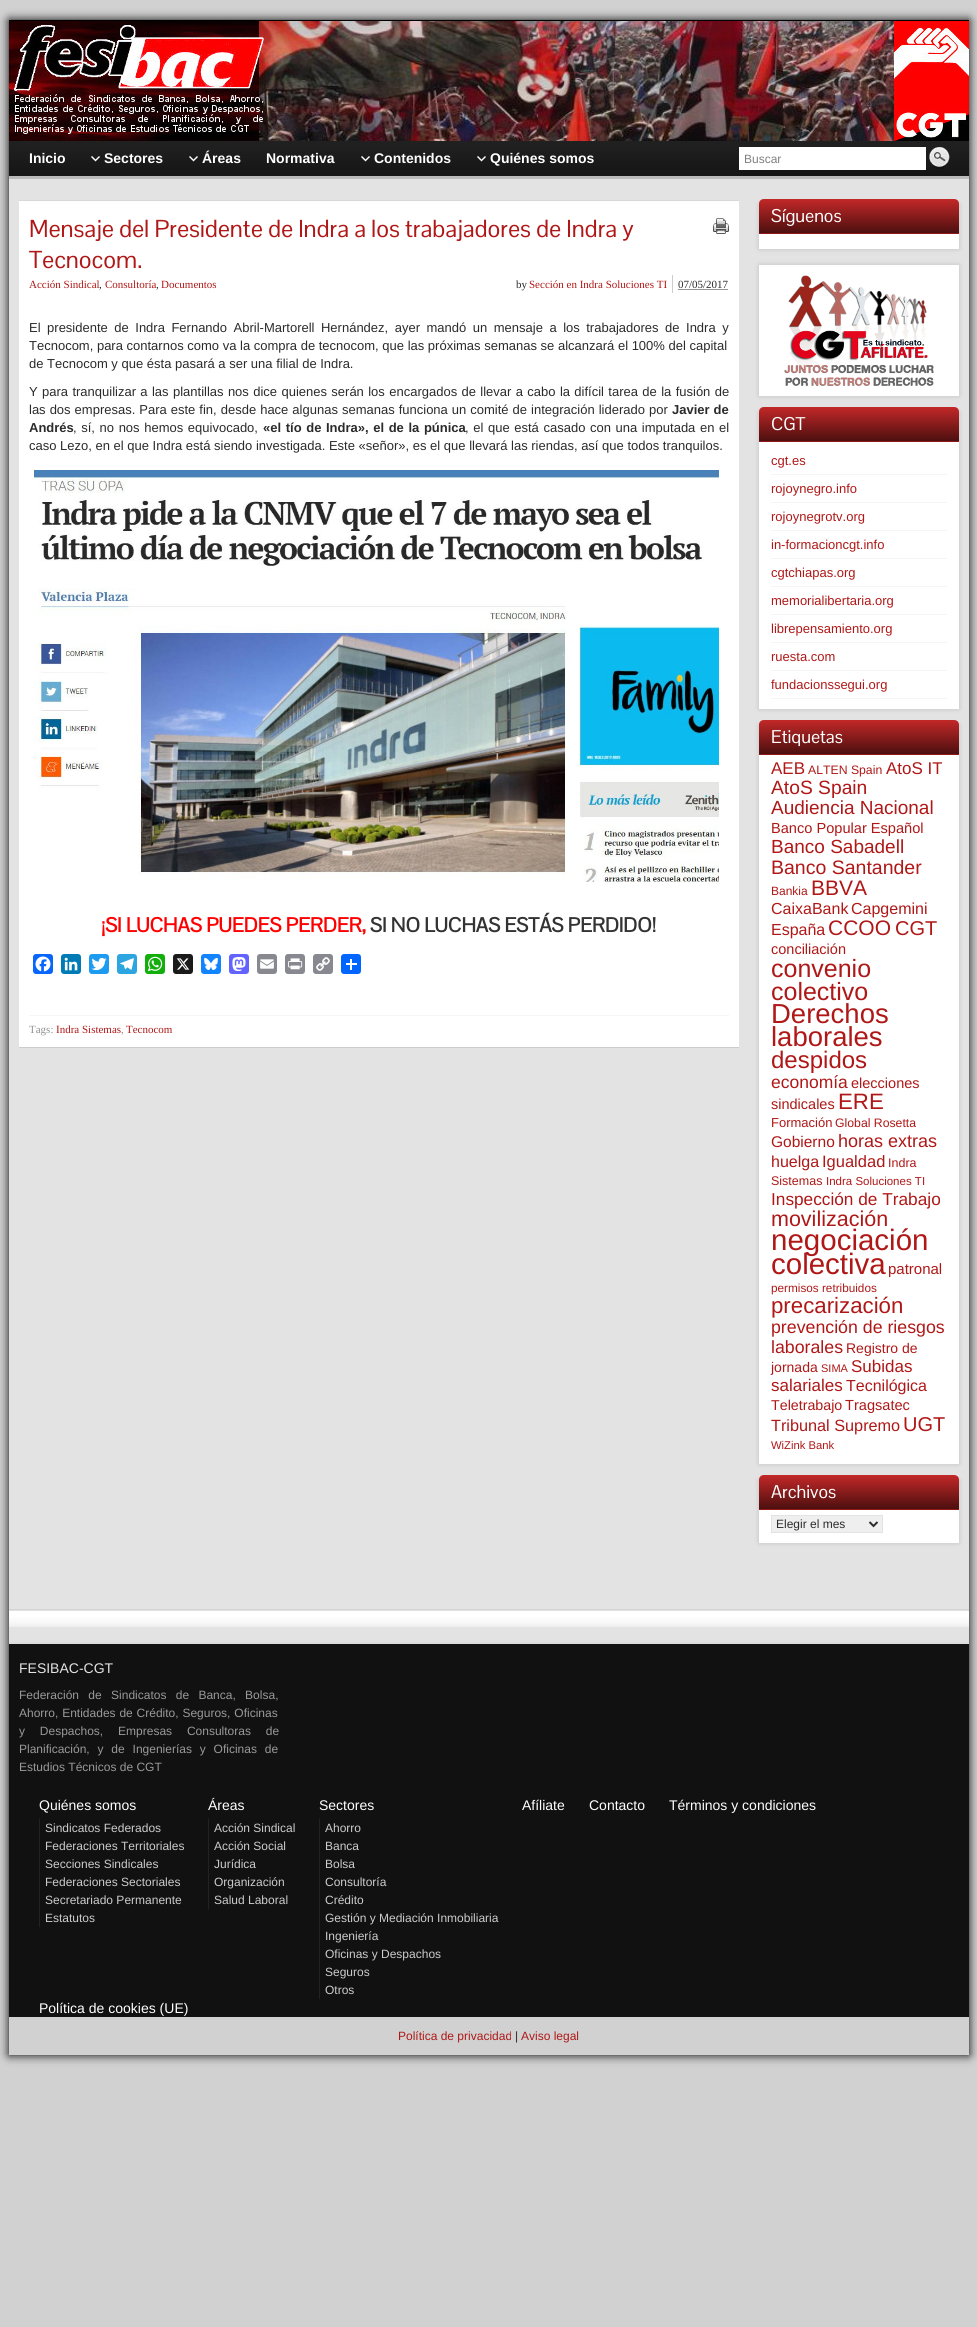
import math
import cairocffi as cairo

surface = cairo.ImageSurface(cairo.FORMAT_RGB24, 977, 2327)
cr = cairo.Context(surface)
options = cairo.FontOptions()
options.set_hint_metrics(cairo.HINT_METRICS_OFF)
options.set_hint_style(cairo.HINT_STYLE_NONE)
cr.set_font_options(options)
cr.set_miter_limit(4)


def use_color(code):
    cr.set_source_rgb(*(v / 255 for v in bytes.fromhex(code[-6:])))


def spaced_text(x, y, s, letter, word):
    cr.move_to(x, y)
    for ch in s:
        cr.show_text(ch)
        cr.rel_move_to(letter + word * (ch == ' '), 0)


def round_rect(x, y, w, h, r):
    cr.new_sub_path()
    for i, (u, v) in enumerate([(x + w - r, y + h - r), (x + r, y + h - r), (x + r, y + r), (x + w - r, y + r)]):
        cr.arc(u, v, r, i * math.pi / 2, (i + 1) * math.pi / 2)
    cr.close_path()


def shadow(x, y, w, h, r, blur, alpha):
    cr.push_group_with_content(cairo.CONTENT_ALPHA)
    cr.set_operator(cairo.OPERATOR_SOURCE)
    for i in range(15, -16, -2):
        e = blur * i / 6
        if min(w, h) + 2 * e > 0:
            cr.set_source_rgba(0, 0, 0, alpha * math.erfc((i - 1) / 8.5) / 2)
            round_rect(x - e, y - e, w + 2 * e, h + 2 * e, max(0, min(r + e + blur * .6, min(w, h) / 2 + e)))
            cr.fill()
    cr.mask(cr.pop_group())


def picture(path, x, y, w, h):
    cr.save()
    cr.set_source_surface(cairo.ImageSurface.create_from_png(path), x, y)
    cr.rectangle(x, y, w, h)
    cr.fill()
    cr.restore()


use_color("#d1d1d1")
cr.paint()
cr.save()
cr.set_fill_rule(cairo.FILL_RULE_EVEN_ODD)
cr.new_path()
cr.move_to(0, 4)
cr.line_to(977, 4)
cr.line_to(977, 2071)
cr.line_to(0, 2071)
cr.close_path()
cr.move_to(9, 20)
cr.line_to(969, 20)
cr.line_to(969, 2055)
cr.line_to(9, 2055)
cr.close_path()
cr.clip()
use_color("#000000")
shadow(9, 20, 960, 2035, 0, 5, 1)
cr.restore()
use_color("#000000")
cr.rectangle(9, 20, 960, 1)
cr.fill()
picture("img1.png", 9, 21, 960, 120)
picture("img2.png", 9, 141, 960, 35)
cr.select_font_face("Liberation Sans", cairo.FONT_SLANT_NORMAL, cairo.FONT_WEIGHT_BOLD)
cr.set_font_size(14)
use_color("#ffffff")
cr.move_to(29, 163)
cr.show_text("Inicio")
picture("img3.png", 91, 156, 9, 6)
cr.move_to(104, 163)
cr.show_text("Sectores")
picture("img3.png", 189, 156, 9, 6)
cr.move_to(202, 163)
cr.show_text("Áreas")
cr.move_to(266, 163)
cr.show_text("Normativa")
picture("img3.png", 361, 156, 9, 6)
cr.move_to(374, 163)
cr.show_text("Contenidos")
picture("img3.png", 477, 156, 9, 6)
cr.move_to(490, 163)
cr.show_text("Quiénes somos")
cr.rectangle(739, 147, 187, 23)
cr.fill()
cr.select_font_face("Liberation Sans")
cr.set_font_size(12)
use_color("#808080")
cr.move_to(744, 163)
cr.show_text("Buscar")
picture("img4.png", 929, 147, 21, 22)
use_color("#bababa")
cr.rectangle(9, 176, 960, 3)
cr.fill()
use_color("#e3e3e3")
cr.rectangle(9, 179, 960, 1430)
cr.fill()
use_color("#ffffff")
cr.rectangle(19, 201, 720, 846)
cr.fill()
use_color("#d8d8d8")
cr.rectangle(19, 200, 720, 1)
cr.fill()
use_color("#cccccc")
cr.rectangle(19, 1047, 720, 1)
cr.fill()
cr.select_font_face("Pontano Sans")
cr.set_font_size(24)
use_color("#af1817")
cr.move_to(29, 237)
cr.show_text("Mensaje del Presidente de Indra a los trabajadores de Indra y")
cr.move_to(29, 268)
cr.show_text("Tecnocom.")
picture("img5.png", 713, 218, 16, 16)
cr.select_font_face("Liberation Serif")
cr.set_font_size(11)
cr.move_to(29, 288)
cr.show_text("Acción Sindical")
use_color("#2c2b2b")
cr.move_to(99, 288)
cr.show_text(",")
use_color("#af1817")
cr.move_to(105, 288)
cr.show_text("Consultoría")
use_color("#2c2b2b")
cr.move_to(156, 288)
cr.show_text(",")
use_color("#af1817")
cr.move_to(161, 288)
cr.show_text("Documentos")
use_color("#2c2b2b")
cr.move_to(516, 288)
cr.show_text("by")
use_color("#af1817")
cr.move_to(529, 288)
cr.show_text("Sección en Indra Soluciones TI")
use_color("#cccccc")
cr.rectangle(672, 275, 1, 18)
cr.fill()
use_color("#2c2b2b")
cr.move_to(678, 288)
cr.show_text("07/05/2017")
cr.new_path()
cr.move_to(678.5, 289.5)
cr.line_to(728.5, 289.5)
cr.set_line_width(1)
cr.set_dash([1, 1])
cr.stroke()
cr.select_font_face("Liberation Sans")
cr.set_font_size(13)
spaced_text(29, 332, "El presidente de Indra Fernando Abril-Martorell Hernández, ayer mandó un mensaje a los trabajadores de Indra y", 0, 2.9)
cr.move_to(29, 350)
cr.show_text("Tecnocom, para contarnos como va la compra de tecnocom, que las próximas semanas se alcanzará el 100% del capital")
cr.move_to(29, 368)
cr.show_text("de Tecnocom y que ésta pasará a ser una filial de Indra.")
spaced_text(29, 396, "Y para tranquilizar a las plantillas nos dice quienes serán los encargados de llevar a cabo la difícil tarea de la fusión de", 0, 0.75)
spaced_text(29, 414, "las dos empresas. Para este fin, desde hace algunas semanas funciona un comité de integración liderado por", 0, 0.4)
cr.select_font_face("Liberation Sans", cairo.FONT_SLANT_NORMAL, cairo.FONT_WEIGHT_BOLD)
spaced_text(672, 414, "Javier de", 0, 0.4)
cr.move_to(29, 432)
cr.show_text("Andrés")
cr.select_font_face("Liberation Sans")
spaced_text(73, 432, ", sí, no nos hemos equivocado,", 0, 1)
cr.select_font_face("Liberation Sans", cairo.FONT_SLANT_NORMAL, cairo.FONT_WEIGHT_BOLD)
spaced_text(263, 432, "«el tío de Indra», el de la púnica", 0, 1)
cr.select_font_face("Liberation Sans")
spaced_text(465, 432, ", el que está casado con una imputada en el", 0, 1)
cr.move_to(29, 450)
cr.show_text("caso Lezo, en el que Indra está siendo investigada. Este «señor», es el que llevará las riendas, así que todos tranquilos.")
picture("img6.png", 34, 470, 685, 412)
cr.select_font_face("Pontano Sans", cairo.FONT_SLANT_NORMAL, cairo.FONT_WEIGHT_BOLD)
cr.set_font_size(20)
use_color("#ff0000")
cr.move_to(101, 932)
cr.show_text("¡SI LUCHAS PUEDES PERDER,")
use_color("#333333")
cr.move_to(370, 932)
cr.show_text("SI NO LUCHAS ESTÁS PERDIDO!")
use_color("#0866ff")
round_rect(33, 954, 20, 20, 3)
cr.fill()
picture("img7.png", 35, 956, 16, 16)
use_color("#007bb5")
round_rect(61, 954, 20, 20, 3)
cr.fill()
picture("img8.png", 64, 957, 14, 14)
use_color("#1d9bf0")
round_rect(89, 954, 20, 20, 3)
cr.fill()
picture("img9.png", 91, 957, 16, 14)
use_color("#2ca5e0")
round_rect(117, 954, 20, 20, 3)
cr.fill()
picture("img10.png", 120, 958, 14, 12)
use_color("#12af0a")
round_rect(145, 954, 20, 20, 3)
cr.fill()
picture("img11.png", 147, 956, 16, 16)
use_color("#1a1a1a")
round_rect(173, 954, 20, 20, 3)
cr.fill()
picture("img12.png", 176, 958, 14, 12)
use_color("#1285fe")
round_rect(201, 954, 20, 20, 3)
cr.fill()
picture("img13.png", 204, 957, 14, 13)
use_color("#6364ff")
round_rect(229, 954, 20, 20, 3)
cr.fill()
picture("img14.png", 232, 957, 14, 14)
use_color("#888990")
round_rect(257, 954, 20, 20, 3)
cr.fill()
picture("img15.png", 260, 959, 14, 10)
round_rect(285, 954, 20, 20, 3)
cr.fill()
picture("img16.png", 288, 958, 15, 12)
round_rect(313, 954, 20, 20, 3)
cr.fill()
picture("img17.png", 316, 957, 14, 14)
use_color("#0166ff")
round_rect(341, 954, 20, 20, 3)
cr.fill()
use_color("#ffffff")
cr.rectangle(350, 959, 2, 11)
cr.fill()
cr.rectangle(346, 963, 11, 2)
cr.fill()
use_color("#f5f5f5")
cr.rectangle(29, 1015, 700, 1)
cr.fill()
cr.select_font_face("Liberation Serif")
cr.set_font_size(11)
use_color("#929292")
cr.move_to(29, 1033)
cr.show_text("Tags:")
use_color("#af1817")
cr.move_to(56, 1033)
cr.show_text("Indra Sistemas")
use_color("#929292")
cr.move_to(121, 1033)
cr.show_text(",")
use_color("#af1817")
cr.move_to(126, 1033)
cr.show_text("Tecnocom")
use_color("#000000")
shadow(759, 204, 200, 45, 0, 2.5, 0.15)
use_color("#ffffff")
cr.rectangle(759, 234, 200, 15)
cr.fill()
gradient = cairo.LinearGradient(859, 199, 859, 233)
gradient.add_color_stop_rgba(0, 0.765, 0.157, 0.157, 1)
gradient.add_color_stop_rgba(1, 0.302, 0.059, 0.059, 1)
cr.set_source(gradient)
cr.new_path()
cr.move_to(764, 199)
cr.line_to(954, 199)
cr.curve_to(957, 199, 959, 201, 959, 204)
cr.line_to(959, 233)
cr.line_to(759, 233)
cr.line_to(759, 204)
cr.curve_to(759, 201, 761, 199, 764, 199)
cr.close_path()
cr.fill()
use_color("#921919")
cr.rectangle(759, 233, 200, 1)
cr.fill()
cr.select_font_face("Pontano Sans")
cr.set_font_size(18)
use_color("#ffffff")
cr.move_to(771, 222)
cr.show_text("Síguenos")
use_color("#000000")
shadow(759, 265, 200, 131, 0, 2.5, 0.15)
use_color("#ffffff")
cr.rectangle(759, 265, 200, 131)
cr.fill()
picture("img18.png", 784, 275, 150, 111)
use_color("#000000")
shadow(759, 412, 200, 297, 0, 2.5, 0.15)
use_color("#ffffff")
cr.rectangle(759, 442, 200, 267)
cr.fill()
gradient = cairo.LinearGradient(859, 407, 859, 441)
gradient.add_color_stop_rgba(0, 0.765, 0.157, 0.157, 1)
gradient.add_color_stop_rgba(1, 0.302, 0.059, 0.059, 1)
cr.set_source(gradient)
cr.new_path()
cr.move_to(764, 407)
cr.line_to(954, 407)
cr.curve_to(957, 407, 959, 409, 959, 412)
cr.line_to(959, 441)
cr.line_to(759, 441)
cr.line_to(759, 412)
cr.curve_to(759, 409, 761, 407, 764, 407)
cr.close_path()
cr.fill()
use_color("#921919")
cr.rectangle(759, 441, 200, 1)
cr.fill()
use_color("#ffffff")
cr.move_to(771, 430)
cr.show_text("CGT")
use_color("#f5f5f5")
cr.rectangle(771, 474, 176, 1)
cr.fill()
cr.select_font_face("Liberation Sans")
cr.set_font_size(13)
use_color("#af1817")
cr.move_to(771, 465)
cr.show_text("cgt.es")
use_color("#f5f5f5")
cr.rectangle(771, 502, 176, 1)
cr.fill()
use_color("#af1817")
cr.move_to(771, 493)
cr.show_text("rojoynegro.info")
use_color("#f5f5f5")
cr.rectangle(771, 530, 176, 1)
cr.fill()
use_color("#af1817")
cr.move_to(771, 521)
cr.show_text("rojoynegrotv.org")
use_color("#f5f5f5")
cr.rectangle(771, 558, 176, 1)
cr.fill()
use_color("#af1817")
cr.move_to(771, 549)
cr.show_text("in-formacioncgt.info")
use_color("#f5f5f5")
cr.rectangle(771, 586, 176, 1)
cr.fill()
use_color("#af1817")
cr.move_to(771, 577)
cr.show_text("cgtchiapas.org")
use_color("#f5f5f5")
cr.rectangle(771, 614, 176, 1)
cr.fill()
use_color("#af1817")
cr.move_to(771, 605)
cr.show_text("memorialibertaria.org")
use_color("#f5f5f5")
cr.rectangle(771, 642, 176, 1)
cr.fill()
use_color("#af1817")
cr.move_to(771, 633)
cr.show_text("librepensamiento.org")
use_color("#f5f5f5")
cr.rectangle(771, 670, 176, 1)
cr.fill()
use_color("#af1817")
cr.move_to(771, 661)
cr.show_text("ruesta.com")
use_color("#f5f5f5")
cr.rectangle(771, 698, 176, 1)
cr.fill()
use_color("#af1817")
cr.move_to(771, 689)
cr.show_text("fundacionssegui.org")
use_color("#000000")
shadow(759, 725, 200, 739, 0, 2.5, 0.15)
use_color("#ffffff")
cr.rectangle(759, 755, 200, 709)
cr.fill()
gradient = cairo.LinearGradient(859, 720, 859, 754)
gradient.add_color_stop_rgba(0, 0.765, 0.157, 0.157, 1)
gradient.add_color_stop_rgba(1, 0.302, 0.059, 0.059, 1)
cr.set_source(gradient)
cr.new_path()
cr.move_to(764, 720)
cr.line_to(954, 720)
cr.curve_to(957, 720, 959, 722, 959, 725)
cr.line_to(959, 754)
cr.line_to(759, 754)
cr.line_to(759, 725)
cr.curve_to(759, 722, 761, 720, 764, 720)
cr.close_path()
cr.fill()
use_color("#921919")
cr.rectangle(759, 754, 200, 1)
cr.fill()
cr.select_font_face("Pontano Sans")
cr.set_font_size(18)
use_color("#ffffff")
cr.move_to(771, 743)
cr.show_text("Etiquetas")
cr.select_font_face("Liberation Sans")
cr.set_font_size(17)
use_color("#af1817")
cr.move_to(771, 774)
cr.show_text("AEB")
cr.set_font_size(12.25)
cr.move_to(808, 774)
cr.show_text("ALTEN Spain")
cr.set_font_size(17)
cr.move_to(886, 774)
cr.show_text("AtoS IT")
cr.set_font_size(19.25)
cr.move_to(771, 794)
cr.show_text("AtoS Spain")
cr.set_font_size(19)
cr.move_to(771, 814)
cr.show_text("Audiencia Nacional")
cr.set_font_size(14.6)
cr.move_to(771, 833)
cr.show_text("Banco Popular Español")
cr.set_font_size(19)
cr.move_to(771, 853)
cr.show_text("Banco Sabadell")
cr.set_font_size(19.5)
cr.move_to(771, 874)
cr.show_text("Banco Santander")
cr.set_font_size(12)
cr.move_to(771, 895)
cr.show_text("Bankia")
cr.set_font_size(21)
cr.move_to(811, 895)
cr.show_text("BBVA")
cr.set_font_size(16)
cr.move_to(771, 914)
cr.show_text("CaixaBank")
cr.move_to(851, 914)
cr.show_text("Capgemini")
cr.move_to(771, 935)
cr.show_text("España")
cr.set_font_size(21)
cr.move_to(828, 935)
cr.show_text("CCOO")
cr.set_font_size(20)
cr.move_to(895, 935)
cr.show_text("CGT")
cr.set_font_size(14.5)
cr.move_to(771, 954)
cr.show_text("conciliación")
cr.set_font_size(25)
cr.move_to(771, 977)
cr.show_text("convenio")
cr.move_to(771, 1000)
cr.show_text("colectivo")
cr.set_font_size(27.5)
cr.move_to(771, 1023)
cr.show_text("Derechos")
cr.move_to(771, 1046)
cr.show_text("laborales")
cr.set_font_size(24)
cr.move_to(771, 1068)
cr.show_text("despidos")
cr.set_font_size(17.5)
cr.move_to(771, 1088)
cr.show_text("economía")
cr.set_font_size(14.5)
cr.move_to(851, 1088)
cr.show_text("elecciones")
cr.move_to(771, 1109)
cr.show_text("sindicales")
cr.set_font_size(22.25)
cr.move_to(838, 1109)
cr.show_text("ERE")
cr.set_font_size(13)
cr.move_to(771, 1127)
cr.show_text("Formación")
cr.set_font_size(12.25)
cr.move_to(835, 1127)
cr.show_text("Global Rosetta")
cr.set_font_size(15.5)
cr.move_to(771, 1147)
cr.show_text("Gobierno")
cr.set_font_size(18)
cr.move_to(838, 1147)
cr.show_text("horas extras")
cr.set_font_size(16)
cr.move_to(771, 1167)
cr.show_text("huelga")
cr.set_font_size(16.5)
cr.move_to(822, 1167)
cr.show_text("Igualdad")
cr.set_font_size(12.5)
cr.move_to(888, 1167)
cr.show_text("Indra")
cr.move_to(771, 1185)
cr.show_text("Sistemas")
cr.set_font_size(11.5)
cr.move_to(826, 1185)
cr.show_text("Indra Soluciones TI")
cr.set_font_size(17.25)
cr.move_to(771, 1205)
cr.show_text("Inspección de Trabajo")
cr.set_font_size(21.5)
cr.move_to(771, 1226)
cr.show_text("movilización")
cr.set_font_size(29.5)
cr.move_to(771, 1250)
cr.show_text("negociación")
cr.move_to(771, 1274)
cr.show_text("colectiva")
cr.set_font_size(15)
cr.move_to(888, 1274)
cr.show_text("patronal")
cr.set_font_size(11.75)
cr.move_to(771, 1292)
cr.show_text("permisos retribuidos")
cr.set_font_size(22.25)
cr.move_to(771, 1313)
cr.show_text("precarización")
cr.set_font_size(17.75)
cr.move_to(771, 1333)
cr.show_text("prevención de riesgos")
cr.move_to(771, 1353)
cr.show_text("laborales")
cr.set_font_size(14)
cr.move_to(846, 1353)
cr.show_text("Registro de")
cr.move_to(771, 1372)
cr.show_text("jornada")
cr.set_font_size(11)
cr.move_to(821, 1372)
cr.show_text("SIMA")
cr.set_font_size(17)
cr.move_to(851, 1372)
cr.show_text("Subidas")
cr.move_to(771, 1391)
cr.show_text("salariales")
cr.set_font_size(16)
cr.move_to(846, 1391)
cr.show_text("Tecnilógica")
cr.set_font_size(14.25)
cr.move_to(771, 1410)
cr.show_text("Teletrabajo")
cr.set_font_size(14.6)
cr.move_to(845, 1410)
cr.show_text("Tragsatec")
cr.set_font_size(16.25)
cr.move_to(771, 1431)
cr.show_text("Tribunal Supremo")
cr.set_font_size(20)
cr.move_to(903, 1431)
cr.show_text("UGT")
cr.set_font_size(11.25)
cr.move_to(771, 1449)
cr.show_text("WiZink Bank")
use_color("#000000")
shadow(759, 1480, 200, 63, 0, 2.5, 0.15)
use_color("#ffffff")
cr.rectangle(759, 1510, 200, 33)
cr.fill()
gradient = cairo.LinearGradient(859, 1475, 859, 1509)
gradient.add_color_stop_rgba(0, 0.765, 0.157, 0.157, 1)
gradient.add_color_stop_rgba(1, 0.302, 0.059, 0.059, 1)
cr.set_source(gradient)
cr.new_path()
cr.move_to(764, 1475)
cr.line_to(954, 1475)
cr.curve_to(957, 1475, 959, 1477, 959, 1480)
cr.line_to(959, 1509)
cr.line_to(759, 1509)
cr.line_to(759, 1480)
cr.curve_to(759, 1477, 761, 1475, 764, 1475)
cr.close_path()
cr.fill()
use_color("#921919")
cr.rectangle(759, 1509, 200, 1)
cr.fill()
cr.select_font_face("Pontano Sans")
cr.set_font_size(18)
use_color("#ffffff")
cr.move_to(771, 1498)
cr.show_text("Archivos")
use_color("#efefef")
cr.rectangle(771.5, 1515.5, 111, 17)
cr.fill_preserve()
use_color("#e3e3e3")
cr.set_dash([])
cr.stroke()
cr.new_path()
cr.move_to(869.5, 1522)
cr.line_to(873.5, 1526)
cr.line_to(877.5, 1522)
use_color("#2c2b2b")
cr.set_line_width(2)
cr.stroke()
cr.select_font_face("Liberation Sans")
cr.set_font_size(12)
cr.move_to(776, 1528)
cr.show_text("Elegir el mes")
use_color("#111111")
cr.rectangle(9, 1644, 960, 373)
cr.fill()
picture("img19.png", 9, 1610, 960, 34)
use_color("#d5d5d5")
cr.rectangle(9, 1609, 960, 1)
cr.fill()
cr.set_font_size(14)
use_color("#e3e3e3")
cr.move_to(19, 1673)
cr.show_text("FESIBAC-CGT")
cr.set_font_size(12)
use_color("#999999")
spaced_text(19, 1699, "Federación de Sindicatos de Banca, Bolsa,", 0, 6)
spaced_text(19, 1717, "Ahorro, Entidades de Crédito, Seguros, Oficinas", 0, 0.5)
spaced_text(19, 1735, "y Despachos, Empresas Consultoras de", 0, 11.5)
spaced_text(19, 1753, "Planificación, y de Ingenierías y Oficinas de", 0, 4.5)
cr.move_to(19, 1771)
cr.show_text("Estudios Técnicos de CGT")
cr.set_font_size(14)
use_color("#ffffff")
cr.move_to(39, 1810)
cr.show_text("Quiénes somos")
use_color("#222222")
cr.rectangle(39, 1819, 1, 108)
cr.fill()
cr.set_font_size(12)
use_color("#cccccc")
cr.move_to(45, 1832)
cr.show_text("Sindicatos Federados")
cr.move_to(45, 1850)
cr.show_text("Federaciones Territoriales")
cr.move_to(45, 1868)
cr.show_text("Secciones Sindicales")
cr.move_to(45, 1886)
cr.show_text("Federaciones Sectoriales")
cr.move_to(45, 1904)
cr.show_text("Secretariado Permanente")
cr.move_to(45, 1922)
cr.show_text("Estatutos")
cr.set_font_size(14)
use_color("#ffffff")
cr.move_to(208, 1810)
cr.show_text("Áreas")
use_color("#222222")
cr.rectangle(208, 1819, 1, 90)
cr.fill()
cr.set_font_size(12)
use_color("#cccccc")
cr.move_to(214, 1832)
cr.show_text("Acción Sindical")
cr.move_to(214, 1850)
cr.show_text("Acción Social")
cr.move_to(214, 1868)
cr.show_text("Jurídica")
cr.move_to(214, 1886)
cr.show_text("Organización")
cr.move_to(214, 1904)
cr.show_text("Salud Laboral")
cr.set_font_size(14)
use_color("#ffffff")
cr.move_to(319, 1810)
cr.show_text("Sectores")
use_color("#222222")
cr.rectangle(319, 1819, 1, 180)
cr.fill()
cr.set_font_size(12)
use_color("#cccccc")
cr.move_to(325, 1832)
cr.show_text("Ahorro")
cr.move_to(325, 1850)
cr.show_text("Banca")
cr.move_to(325, 1868)
cr.show_text("Bolsa")
cr.move_to(325, 1886)
cr.show_text("Consultoría")
cr.move_to(325, 1904)
cr.show_text("Crédito")
cr.move_to(325, 1922)
cr.show_text("Gestión y Mediación Inmobiliaria")
cr.move_to(325, 1940)
cr.show_text("Ingeniería")
cr.move_to(325, 1958)
cr.show_text("Oficinas y Despachos")
cr.move_to(325, 1976)
cr.show_text("Seguros")
cr.move_to(325, 1994)
cr.show_text("Otros")
cr.set_font_size(14)
use_color("#ffffff")
cr.move_to(522, 1810)
cr.show_text("Afíliate")
cr.move_to(589, 1810)
cr.show_text("Contacto")
cr.move_to(669, 1810)
cr.show_text("Términos y condiciones")
cr.move_to(39, 2013)
cr.show_text("Política de cookies (UE)")
cr.set_font_size(12)
use_color("#af1817")
cr.move_to(398, 2040)
cr.show_text("Política de privacidad")
use_color("#2c2b2b")
cr.move_to(515, 2040)
cr.show_text("|")
use_color("#af1817")
cr.move_to(521, 2040)
cr.show_text("Aviso legal")
surface.write_to_png("result.png")
